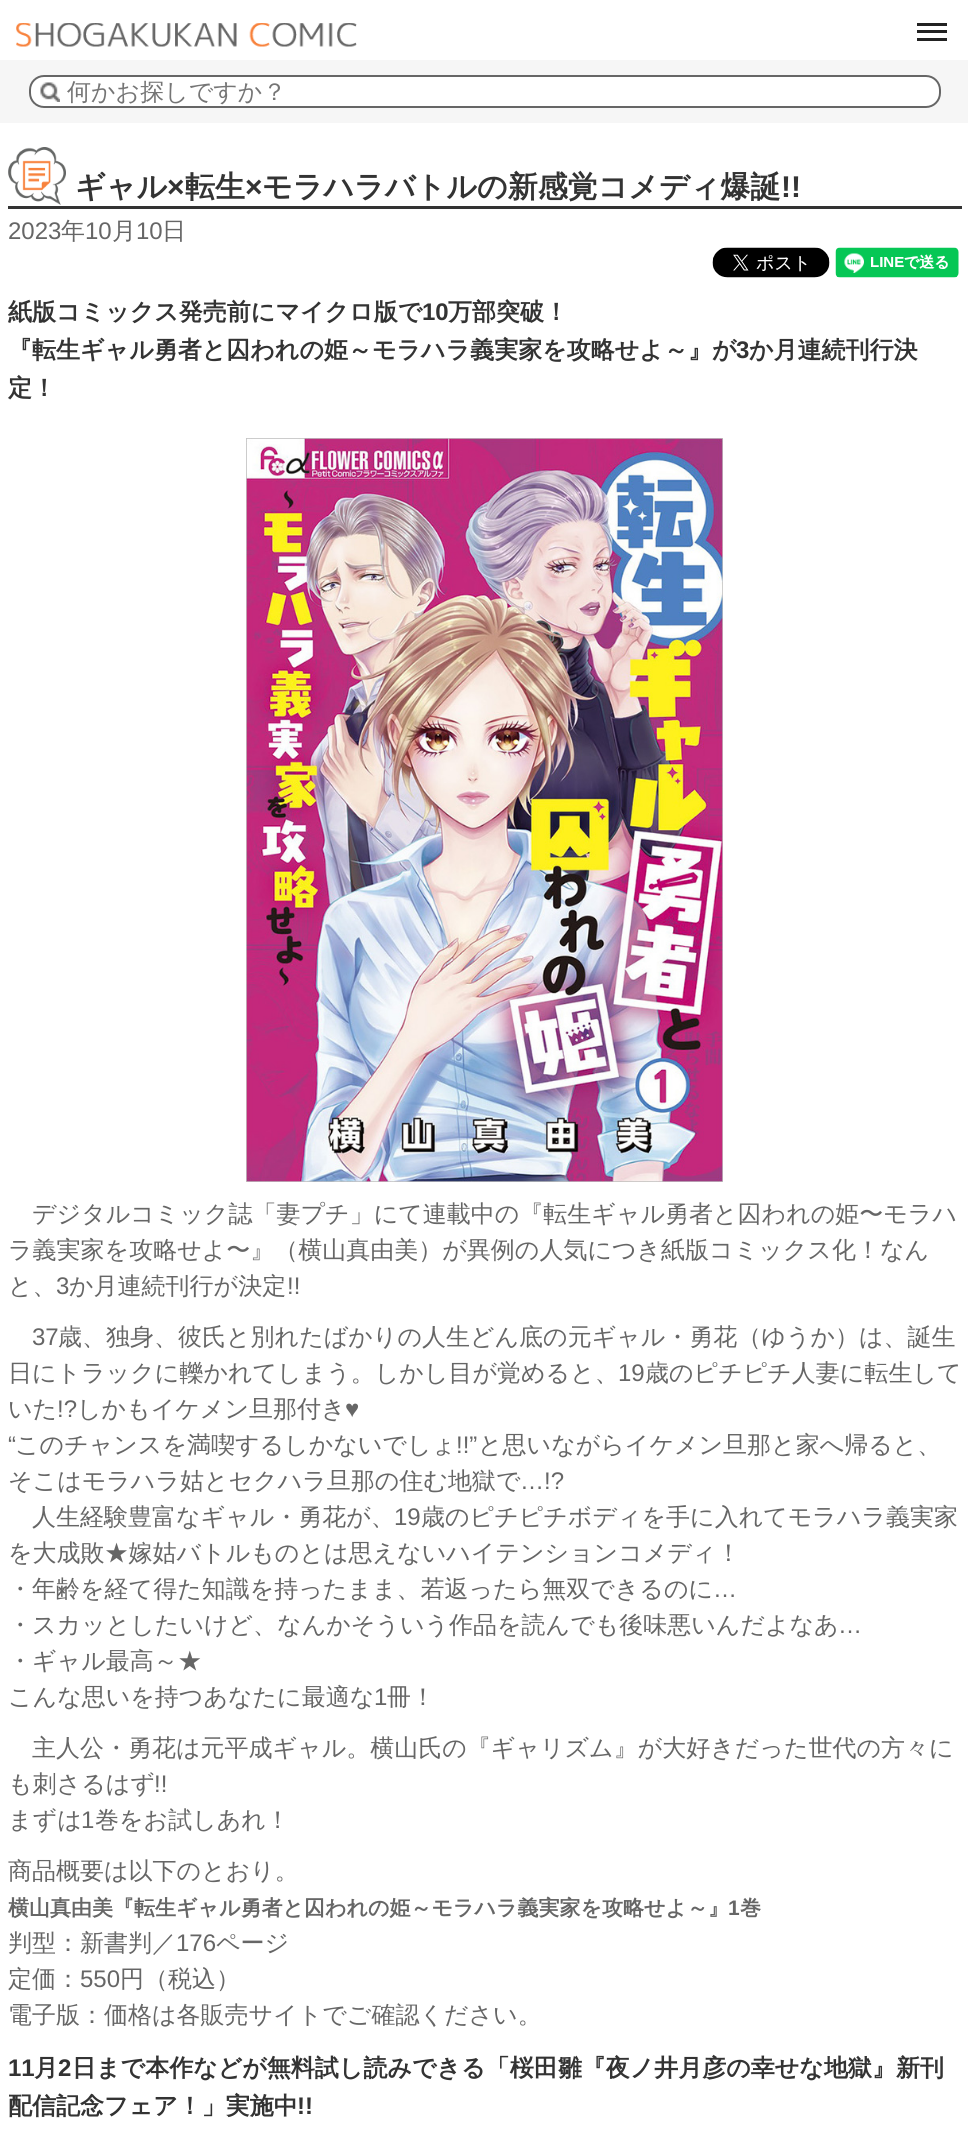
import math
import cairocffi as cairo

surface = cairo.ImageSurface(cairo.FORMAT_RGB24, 968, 2147)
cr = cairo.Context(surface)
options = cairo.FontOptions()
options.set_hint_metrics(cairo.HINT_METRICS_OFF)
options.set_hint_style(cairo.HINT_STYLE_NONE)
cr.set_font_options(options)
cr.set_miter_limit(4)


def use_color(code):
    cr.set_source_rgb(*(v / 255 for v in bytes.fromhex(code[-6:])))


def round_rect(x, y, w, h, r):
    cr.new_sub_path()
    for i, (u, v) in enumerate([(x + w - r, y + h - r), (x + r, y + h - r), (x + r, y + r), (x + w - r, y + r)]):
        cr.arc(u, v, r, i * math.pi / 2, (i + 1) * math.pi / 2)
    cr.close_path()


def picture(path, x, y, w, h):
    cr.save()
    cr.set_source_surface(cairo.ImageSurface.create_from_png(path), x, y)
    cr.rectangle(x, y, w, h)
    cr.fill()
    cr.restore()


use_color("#ffffff")
cr.paint()
picture("img1.png", 16, 23, 341, 24)
use_color("#222222")
cr.rectangle(917, 30, 30, 3)
cr.fill()
cr.rectangle(917, 23, 30, 3)
cr.fill()
cr.rectangle(917, 38, 30, 3)
cr.fill()
use_color("#f6f6f6")
cr.rectangle(0, 60, 968, 63)
cr.fill()
use_color("#ffffff")
round_rect(29, 75, 912, 33, 15)
cr.fill()
picture("img2.png", 40, 82, 20, 20)
round_rect(30, 76, 910, 31, 14)
use_color("#666666")
cr.stroke()
cr.select_font_face("WenQuanYi Zen Hei Medium")
cr.set_font_size(24)
use_color("#757575")
cr.move_to(67, 100)
cr.show_text("何かお探しですか？")
picture("img3.png", 8, 147, 58, 58)
use_color("#333333")
cr.rectangle(8, 206, 954, 3)
cr.fill()
cr.select_font_face("WenQuanYi Zen Hei", cairo.FONT_SLANT_NORMAL, cairo.FONT_WEIGHT_BOLD)
cr.set_font_size(30)
cr.move_to(75, 197)
cr.show_text("ギャル")
cr.select_font_face("Liberation Sans", cairo.FONT_SLANT_NORMAL, cairo.FONT_WEIGHT_BOLD)
cr.move_to(167, 197)
cr.show_text("×")
cr.select_font_face("WenQuanYi Zen Hei", cairo.FONT_SLANT_NORMAL, cairo.FONT_WEIGHT_BOLD)
cr.move_to(185, 197)
cr.show_text("転生")
cr.select_font_face("Liberation Sans", cairo.FONT_SLANT_NORMAL, cairo.FONT_WEIGHT_BOLD)
cr.move_to(245, 197)
cr.show_text("×")
cr.select_font_face("WenQuanYi Zen Hei", cairo.FONT_SLANT_NORMAL, cairo.FONT_WEIGHT_BOLD)
cr.move_to(262, 197)
cr.show_text("モラハラバトルの新感覚コメディ爆誕")
cr.select_font_face("Liberation Sans", cairo.FONT_SLANT_NORMAL, cairo.FONT_WEIGHT_BOLD)
cr.move_to(781, 197)
cr.show_text("!!")
cr.select_font_face("Liberation Sans")
cr.set_font_size(24)
use_color("#666666")
cr.move_to(8, 239)
cr.show_text("2023")
cr.select_font_face("WenQuanYi Zen Hei Medium")
cr.move_to(61, 239)
cr.show_text("年")
cr.select_font_face("Liberation Sans")
cr.move_to(85, 239)
cr.show_text("10")
cr.select_font_face("WenQuanYi Zen Hei Medium")
cr.move_to(112, 239)
cr.show_text("月")
cr.select_font_face("Liberation Sans")
cr.move_to(136, 239)
cr.show_text("10")
cr.select_font_face("WenQuanYi Zen Hei Medium")
cr.move_to(162, 239)
cr.show_text("日")
picture("img4.png", 712, 247, 118, 31)
picture("img5.png", 835, 247, 124, 31)
cr.save()
cr.rectangle(8, 125, 954, 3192)
cr.clip()
cr.select_font_face("WenQuanYi Zen Hei", cairo.FONT_SLANT_NORMAL, cairo.FONT_WEIGHT_BOLD)
use_color("#333333")
cr.move_to(8, 320)
cr.show_text("紙版コミックス発売前にマイクロ版で")
cr.restore()
cr.select_font_face("Liberation Sans", cairo.FONT_SLANT_NORMAL, cairo.FONT_WEIGHT_BOLD)
use_color("#333333")
cr.move_to(422, 320)
cr.show_text("10")
cr.select_font_face("WenQuanYi Zen Hei", cairo.FONT_SLANT_NORMAL, cairo.FONT_WEIGHT_BOLD)
cr.move_to(448, 320)
cr.show_text("万部突破！")
cr.move_to(8, 358)
cr.show_text("『転生ギャル勇者と囚われの姫～モラハラ義実家を攻略せよ～』が")
cr.select_font_face("Liberation Sans", cairo.FONT_SLANT_NORMAL, cairo.FONT_WEIGHT_BOLD)
cr.move_to(736, 358)
cr.show_text("3")
cr.select_font_face("WenQuanYi Zen Hei", cairo.FONT_SLANT_NORMAL, cairo.FONT_WEIGHT_BOLD)
cr.move_to(749, 358)
cr.show_text("か月連続刊行決")
cr.move_to(8, 396)
cr.show_text("定！")
picture("img6.png", 246, 438, 477, 744)
cr.select_font_face("WenQuanYi Zen Hei Medium")
use_color("#666666")
cr.move_to(32, 1222)
cr.show_text("デジタルコミック誌「妻プチ」にて連載中の『転生ギャル勇者と囚われの姫〜モラハ")
cr.move_to(8, 1258)
cr.show_text("ラ義実家を攻略せよ〜』（横山真由美）が異例の人気につき紙版コミックス化！なん")
cr.move_to(8, 1294)
cr.show_text("と、")
cr.select_font_face("Liberation Sans")
cr.move_to(56, 1294)
cr.show_text("3")
cr.select_font_face("WenQuanYi Zen Hei Medium")
cr.move_to(69, 1294)
cr.show_text("か月連続刊行が決定")
cr.select_font_face("Liberation Sans")
cr.move_to(287, 1294)
cr.show_text("!!")
cr.move_to(32, 1345)
cr.show_text("37")
cr.select_font_face("WenQuanYi Zen Hei Medium")
cr.move_to(58, 1345)
cr.show_text("歳、独身、彼氏と別れたばかりの人生どん底の元ギャル・勇花（ゆうか）は、誕生")
cr.move_to(8, 1381)
cr.show_text("日にトラックに轢かれてしまう。しかし目が覚めると、")
cr.select_font_face("Liberation Sans")
cr.move_to(618, 1381)
cr.show_text("19")
cr.select_font_face("WenQuanYi Zen Hei Medium")
cr.move_to(645, 1381)
cr.show_text("歳のピチピチ人妻に転生して")
cr.move_to(8, 1417)
cr.show_text("いた")
cr.select_font_face("Liberation Sans")
cr.move_to(57, 1417)
cr.show_text("!?")
cr.select_font_face("WenQuanYi Zen Hei Medium")
cr.move_to(77, 1417)
cr.show_text("しかもイケメン旦那付き")
cr.select_font_face("Liberation Sans")
cr.move_to(345, 1417)
cr.show_text("♥")
cr.move_to(8, 1453)
cr.show_text("“")
cr.select_font_face("WenQuanYi Zen Hei Medium")
cr.move_to(15, 1453)
cr.show_text("このチャンスを満喫するしかないでしょ")
cr.select_font_face("Liberation Sans")
cr.move_to(456, 1453)
cr.show_text("!!”")
cr.select_font_face("WenQuanYi Zen Hei Medium")
cr.move_to(478, 1453)
cr.show_text("と思いながらイケメン旦那と家へ帰ると、")
cr.move_to(8, 1489)
cr.show_text("そこはモラハラ姑とセクハラ旦那の住む地獄で")
cr.select_font_face("Liberation Sans")
cr.move_to(520, 1489)
cr.show_text("…!?")
cr.select_font_face("WenQuanYi Zen Hei Medium")
cr.move_to(32, 1525)
cr.show_text("人生経験豊富なギャル・勇花が、")
cr.select_font_face("Liberation Sans")
cr.move_to(394, 1525)
cr.show_text("19")
cr.select_font_face("WenQuanYi Zen Hei Medium")
cr.move_to(421, 1525)
cr.show_text("歳のピチピチボディを手に入れてモラハラ義実家")
cr.move_to(8, 1561)
cr.show_text("を大成敗★嫁姑バトルものとは思えないハイテンションコメディ！")
cr.move_to(8, 1597)
cr.show_text("・年齢を経て得た知識を持ったまま、若返ったら無双できるのに")
cr.select_font_face("Liberation Sans")
cr.move_to(713, 1597)
cr.show_text("…")
cr.select_font_face("WenQuanYi Zen Hei Medium")
cr.move_to(8, 1633)
cr.show_text("・スカッとしたいけど、なんかそういう作品を読んでも後味悪いんだよなあ")
cr.select_font_face("Liberation Sans")
cr.move_to(838, 1633)
cr.show_text("…")
cr.select_font_face("WenQuanYi Zen Hei Medium")
cr.move_to(8, 1669)
cr.show_text("・ギャル最高～★")
cr.move_to(8, 1705)
cr.show_text("こんな思いを持つあなたに最適な")
cr.select_font_face("Liberation Sans")
cr.move_to(374, 1705)
cr.show_text("1")
cr.select_font_face("WenQuanYi Zen Hei Medium")
cr.move_to(387, 1705)
cr.show_text("冊！")
cr.move_to(32, 1756)
cr.show_text("主人公・勇花は元平成ギャル。横山氏の『ギャリズム』が大好きだった世代の方々に")
cr.move_to(8, 1792)
cr.show_text("も刺さるはず")
cr.select_font_face("Liberation Sans")
cr.move_to(154, 1792)
cr.show_text("!!")
cr.select_font_face("WenQuanYi Zen Hei Medium")
cr.move_to(8, 1828)
cr.show_text("まずは")
cr.select_font_face("Liberation Sans")
cr.move_to(81, 1828)
cr.show_text("1")
cr.select_font_face("WenQuanYi Zen Hei Medium")
cr.move_to(95, 1828)
cr.show_text("巻をお試しあれ！")
cr.move_to(8, 1879)
cr.show_text("商品概要は以下のとおり。")
cr.select_font_face("WenQuanYi Zen Hei", cairo.FONT_SLANT_NORMAL, cairo.FONT_WEIGHT_BOLD)
cr.set_font_size(21)
cr.move_to(8, 1915)
cr.show_text("横山真由美『転生ギャル勇者と囚われの姫～モラハラ義実家を攻略せよ～』")
cr.select_font_face("Liberation Sans", cairo.FONT_SLANT_NORMAL, cairo.FONT_WEIGHT_BOLD)
cr.move_to(728, 1915)
cr.show_text("1")
cr.select_font_face("WenQuanYi Zen Hei", cairo.FONT_SLANT_NORMAL, cairo.FONT_WEIGHT_BOLD)
cr.move_to(740, 1915)
cr.show_text("巻")
cr.select_font_face("WenQuanYi Zen Hei Medium")
cr.set_font_size(24)
cr.move_to(8, 1951)
cr.show_text("判型：新書判／")
cr.select_font_face("Liberation Sans")
cr.move_to(176, 1951)
cr.show_text("176")
cr.select_font_face("WenQuanYi Zen Hei Medium")
cr.move_to(216, 1951)
cr.show_text("ページ")
cr.move_to(8, 1987)
cr.show_text("定価：")
cr.select_font_face("Liberation Sans")
cr.move_to(80, 1987)
cr.show_text("550")
cr.select_font_face("WenQuanYi Zen Hei Medium")
cr.move_to(120, 1987)
cr.show_text("円（税込）")
cr.move_to(8, 2023)
cr.show_text("電子版：価格は各販売サイトでご確認ください。")
cr.select_font_face("Liberation Sans", cairo.FONT_SLANT_NORMAL, cairo.FONT_WEIGHT_BOLD)
use_color("#333333")
cr.move_to(8, 2076)
cr.show_text("11")
cr.select_font_face("WenQuanYi Zen Hei", cairo.FONT_SLANT_NORMAL, cairo.FONT_WEIGHT_BOLD)
cr.move_to(34, 2076)
cr.show_text("月")
cr.select_font_face("Liberation Sans", cairo.FONT_SLANT_NORMAL, cairo.FONT_WEIGHT_BOLD)
cr.move_to(58, 2076)
cr.show_text("2")
cr.select_font_face("WenQuanYi Zen Hei", cairo.FONT_SLANT_NORMAL, cairo.FONT_WEIGHT_BOLD)
cr.move_to(72, 2076)
cr.show_text("日まで本作などが無料試し読みできる「桜田雛『夜ノ井月彦の幸せな地獄』新刊")
cr.move_to(8, 2114)
cr.show_text("配信記念フェア！」実施中")
cr.select_font_face("Liberation Sans", cairo.FONT_SLANT_NORMAL, cairo.FONT_WEIGHT_BOLD)
cr.move_to(297, 2114)
cr.show_text("!!")
surface.write_to_png("result.png")
